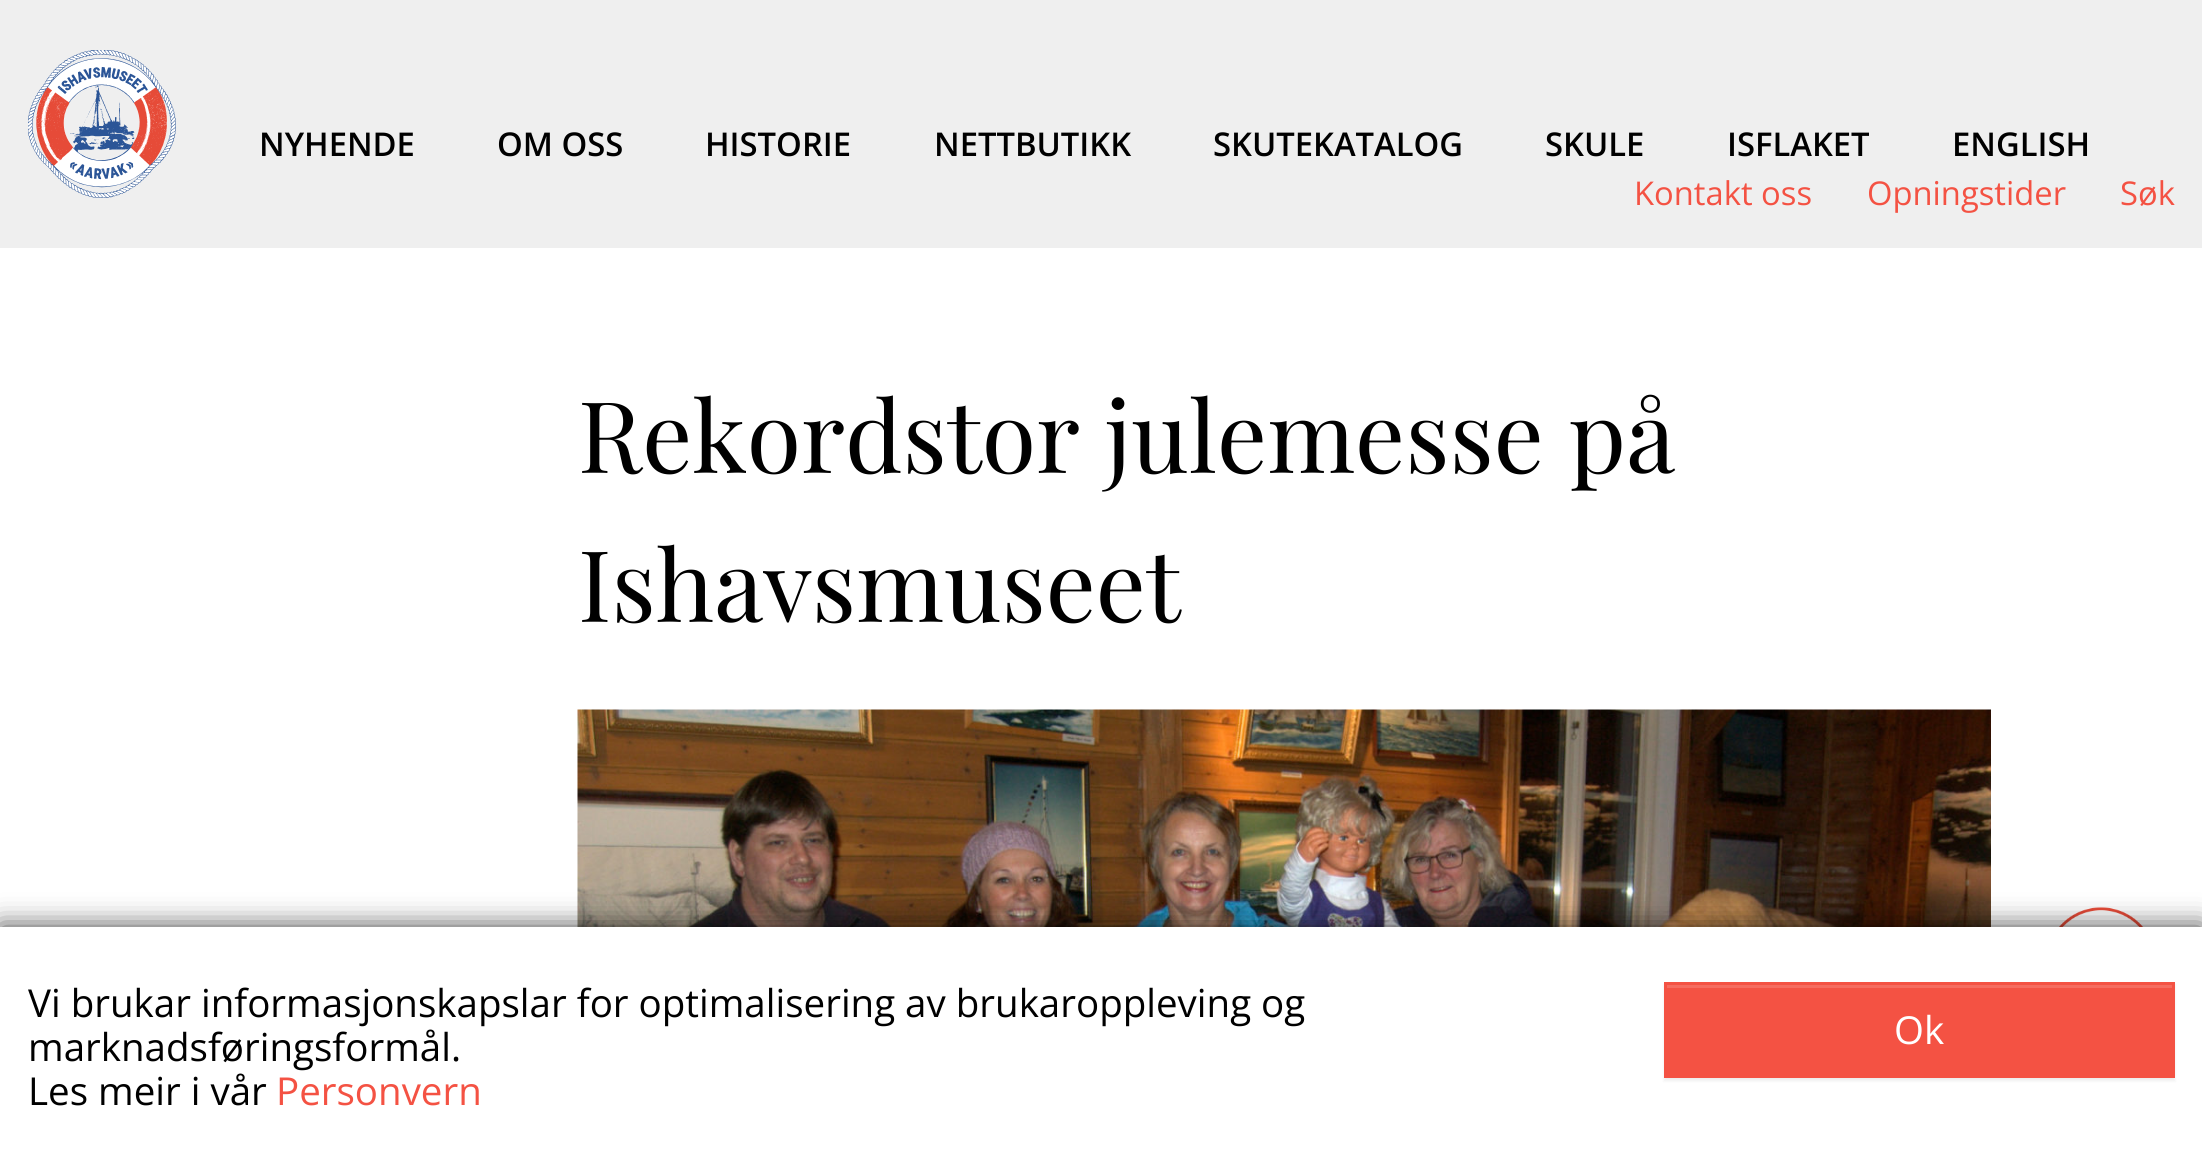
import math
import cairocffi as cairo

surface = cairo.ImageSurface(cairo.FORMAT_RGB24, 2202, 1167)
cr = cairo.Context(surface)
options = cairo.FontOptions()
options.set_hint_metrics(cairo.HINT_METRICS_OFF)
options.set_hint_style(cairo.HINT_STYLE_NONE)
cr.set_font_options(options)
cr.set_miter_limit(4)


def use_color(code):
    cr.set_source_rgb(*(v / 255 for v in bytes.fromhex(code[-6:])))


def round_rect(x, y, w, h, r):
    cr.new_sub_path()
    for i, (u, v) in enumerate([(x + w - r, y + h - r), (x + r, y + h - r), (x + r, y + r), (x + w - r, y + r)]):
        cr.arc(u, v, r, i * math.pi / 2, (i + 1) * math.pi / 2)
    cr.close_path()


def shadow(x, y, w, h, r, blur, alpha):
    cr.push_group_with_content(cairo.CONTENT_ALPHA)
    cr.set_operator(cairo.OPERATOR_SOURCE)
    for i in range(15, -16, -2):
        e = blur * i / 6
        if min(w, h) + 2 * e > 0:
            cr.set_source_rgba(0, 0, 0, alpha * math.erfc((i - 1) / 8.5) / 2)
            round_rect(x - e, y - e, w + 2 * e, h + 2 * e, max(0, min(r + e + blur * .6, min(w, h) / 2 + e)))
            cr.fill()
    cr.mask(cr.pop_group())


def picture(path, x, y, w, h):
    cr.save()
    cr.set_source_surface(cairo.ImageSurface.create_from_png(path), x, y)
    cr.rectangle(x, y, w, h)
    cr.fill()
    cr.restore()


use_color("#ffffff")
cr.paint()
use_color("#efefef")
cr.rectangle(0, 0, 2202, 248)
cr.fill()
picture("img1.png", 28, 50, 148, 148)
cr.select_font_face("Open Sans SemiBold")
cr.set_font_size(32.75)
use_color("#000000")
cr.move_to(259, 156)
cr.show_text("NYHENDE")
cr.move_to(497, 156)
cr.show_text("OM OSS")
cr.move_to(705, 156)
cr.show_text("HISTORIE")
cr.move_to(934, 156)
cr.show_text("NETTBUTIKK")
cr.move_to(1213, 156)
cr.show_text("SKUTEKATALOG")
cr.move_to(1545, 156)
cr.show_text("SKULE")
cr.move_to(1727, 156)
cr.show_text("ISFLAKET")
cr.move_to(1952, 156)
cr.show_text("ENGLISH")
cr.select_font_face("Open Sans")
use_color("#f45243")
cr.move_to(1634, 205)
cr.show_text("Kontakt oss")
cr.move_to(1867, 205)
cr.show_text("Opningstider")
cr.move_to(2120, 205)
cr.show_text("Søk")
cr.select_font_face("Playfair Display")
cr.set_font_size(99)
use_color("#000000")
cr.move_to(578, 473)
cr.show_text("Rekordstor julemesse på")
cr.move_to(578, 622)
cr.show_text("Ishavsmuseet")
picture("img2.png", 577, 709, 1414, 218)
picture("img3.png", 2059, 907, 85, 20)
use_color("#000000")
shadow(0, 927, 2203, 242, 0, 14, 0.75)
use_color("#ffffff")
cr.rectangle(0, 927, 2202, 240)
cr.fill()
cr.select_font_face("Open Sans")
cr.set_font_size(38.5)
use_color("#000000")
cr.move_to(28, 1017)
cr.show_text("Vi brukar informasjonskapslar for optimalisering av brukaroppleving og")
cr.move_to(28, 1061)
cr.show_text("marknadsføringsformål.")
cr.move_to(28, 1105)
cr.show_text("Les meir i vår")
use_color("#f45243")
cr.move_to(276, 1105)
cr.show_text("Personvern")
use_color("#000000")
shadow(1664, 985, 511, 96, 0, 1.5, 0.07)
use_color("#f45243")
cr.rectangle(1667, 988, 505, 87)
cr.fill()
use_color("#f66c5f")
cr.rectangle(1667, 985, 506, 3)
cr.fill()
cr.rectangle(1665.5, 983.5, 508, 93)
use_color("#f45243")
cr.set_line_width(3)
cr.stroke()
use_color("#ffffff")
cr.move_to(1894, 1044)
cr.show_text("Ok")
surface.write_to_png("result.png")
